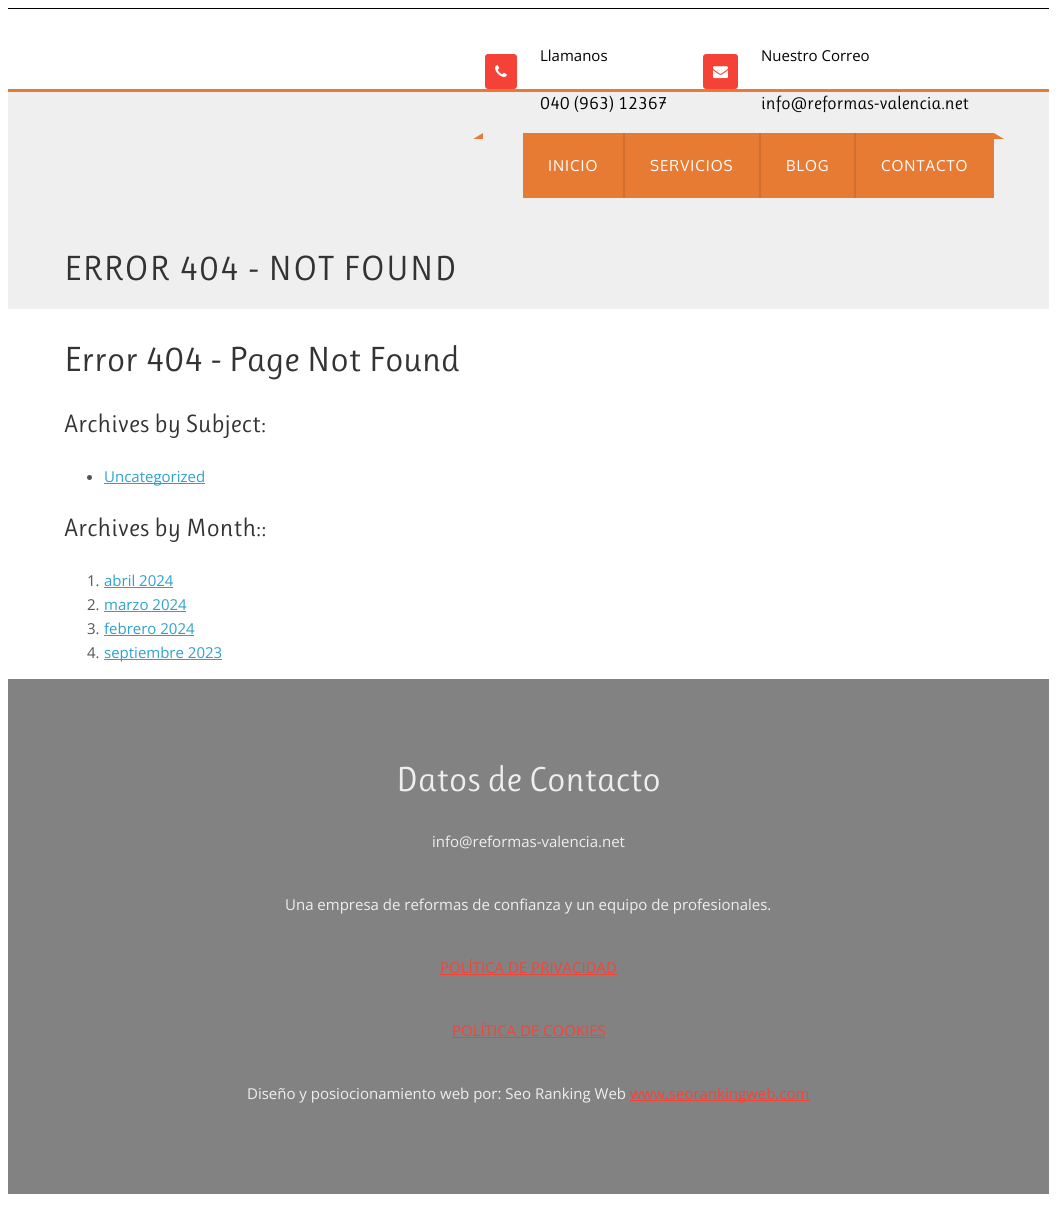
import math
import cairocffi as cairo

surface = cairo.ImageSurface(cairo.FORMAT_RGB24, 1057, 1215)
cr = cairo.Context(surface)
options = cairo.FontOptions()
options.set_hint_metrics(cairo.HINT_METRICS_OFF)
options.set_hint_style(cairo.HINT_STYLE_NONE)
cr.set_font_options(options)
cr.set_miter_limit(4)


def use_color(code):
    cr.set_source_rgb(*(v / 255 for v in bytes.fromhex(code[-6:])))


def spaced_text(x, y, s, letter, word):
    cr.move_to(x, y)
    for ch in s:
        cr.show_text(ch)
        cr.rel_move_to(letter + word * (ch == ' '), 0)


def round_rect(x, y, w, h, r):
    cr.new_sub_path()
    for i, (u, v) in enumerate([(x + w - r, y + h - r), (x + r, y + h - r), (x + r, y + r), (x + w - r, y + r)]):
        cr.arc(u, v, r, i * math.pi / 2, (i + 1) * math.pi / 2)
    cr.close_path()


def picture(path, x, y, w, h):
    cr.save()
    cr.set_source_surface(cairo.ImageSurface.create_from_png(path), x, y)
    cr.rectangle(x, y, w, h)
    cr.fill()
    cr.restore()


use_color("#ffffff")
cr.paint()
use_color("#000000")
cr.rectangle(8, 8, 1041, 1)
cr.fill()
use_color("#f44336")
round_rect(485, 54, 32, 35, 3)
cr.fill()
picture("img1.png", 495, 65, 12, 12)
cr.select_font_face("Open Sans")
cr.set_font_size(15)
use_color("#000000")
cr.move_to(540, 61)
cr.show_text("Llamanos")
use_color("#efefef")
cr.rectangle(8, 92, 1041, 217)
cr.fill()
cr.select_font_face("Ruluko")
cr.set_font_size(18)
use_color("#000000")
cr.move_to(540, 109)
cr.show_text("040 (963) 12367")
use_color("#f44336")
round_rect(703, 54, 35, 35, 3)
cr.fill()
picture("img2.png", 713, 66, 15, 13)
cr.select_font_face("Open Sans")
cr.set_font_size(15)
use_color("#000000")
cr.move_to(761, 61)
cr.show_text("Nuestro Correo")
cr.select_font_face("Ruluko")
cr.set_font_size(18)
cr.move_to(761, 109)
cr.show_text("info@reformas-valencia.net")
use_color("#e87b33")
cr.rectangle(8, 89, 1041, 3)
cr.fill()
cr.new_path()
cr.move_to(483, 133)
cr.line_to(483, 139)
cr.line_to(473, 139)
cr.close_path()
cr.fill()
cr.new_path()
cr.move_to(1004, 139)
cr.line_to(994, 139)
cr.line_to(994, 133)
cr.close_path()
cr.fill()
cr.rectangle(523, 133, 100, 65)
cr.fill()
use_color("#d16f2e")
cr.rectangle(623, 133, 2, 65)
cr.fill()
cr.select_font_face("Oxygen")
cr.set_font_size(15)
use_color("#ffffff")
spaced_text(548, 171, "INICIO", 1, 0)
use_color("#e87b33")
cr.rectangle(625, 133, 134, 65)
cr.fill()
use_color("#d16f2e")
cr.rectangle(759, 133, 2, 65)
cr.fill()
use_color("#ffffff")
spaced_text(650, 171, "SERVICIOS", 1, 0)
use_color("#e87b33")
cr.rectangle(761, 133, 93, 65)
cr.fill()
use_color("#d16f2e")
cr.rectangle(854, 133, 2, 65)
cr.fill()
use_color("#ffffff")
spaced_text(786, 171, "BLOG", 1, 0)
use_color("#e87b33")
cr.rectangle(856, 133, 138, 65)
cr.fill()
use_color("#ffffff")
spaced_text(881, 171, "CONTACTO", 1, 0)
cr.select_font_face("Ruluko")
cr.set_font_size(35)
use_color("#333333")
spaced_text(64, 280, "ERROR 404 - NOT FOUND", 1, 0)
cr.move_to(64, 371)
cr.show_text("Error 404 - Page Not Found")
cr.set_font_size(25)
cr.move_to(64, 432)
cr.show_text("Archives by Subject:")
use_color("#555555")
cr.new_path()
cr.arc(89.5, 477.5, 2.5, 0, 2 * math.pi)
cr.fill()
use_color("#2ea2cc")
cr.rectangle(104, 483, 101, 1)
cr.fill()
cr.select_font_face("Open Sans")
cr.set_font_size(15)
cr.move_to(104, 482)
cr.show_text("Uncategorized")
cr.select_font_face("Ruluko")
cr.set_font_size(25)
use_color("#333333")
cr.move_to(64, 536)
cr.show_text("Archives by Month::")
cr.select_font_face("Open Sans")
cr.set_font_size(15)
use_color("#555555")
cr.move_to(87, 586)
cr.show_text("1.")
use_color("#2ea2cc")
cr.move_to(104, 586)
cr.show_text("abril 2024")
cr.rectangle(104, 587, 69, 1)
cr.fill()
use_color("#555555")
cr.move_to(87, 610)
cr.show_text("2.")
use_color("#2ea2cc")
cr.move_to(104, 610)
cr.show_text("marzo 2024")
cr.rectangle(104, 611, 82, 1)
cr.fill()
use_color("#555555")
cr.move_to(87, 634)
cr.show_text("3.")
use_color("#2ea2cc")
cr.move_to(104, 634)
cr.show_text("febrero 2024")
cr.rectangle(104, 635, 90, 1)
cr.fill()
use_color("#555555")
cr.move_to(87, 658)
cr.show_text("4.")
use_color("#2ea2cc")
cr.rectangle(104, 659, 118, 1)
cr.fill()
cr.move_to(104, 658)
cr.show_text("septiembre 2023")
use_color("#828282")
cr.rectangle(8, 679, 1041, 515)
cr.fill()
cr.select_font_face("Ruluko")
cr.set_font_size(35)
use_color("#eeeeee")
cr.move_to(396, 791)
cr.show_text("Datos de Contacto")
cr.select_font_face("Open Sans")
cr.set_font_size(15)
cr.move_to(432, 847)
cr.show_text("info@reformas-valencia.net")
cr.move_to(285, 910)
cr.show_text("Una empresa de reformas de confianza y un equipo de profesionales.")
use_color("#f44336")
cr.move_to(440, 973)
cr.show_text("POLÍTICA DE PRIVACIDAD")
cr.rectangle(440, 974, 177, 1)
cr.fill()
cr.move_to(452, 1036)
cr.show_text("POLÍTICA DE COOKIES")
cr.rectangle(452, 1037, 153, 1)
cr.fill()
use_color("#eeeeee")
cr.move_to(247, 1099)
cr.show_text("Diseño y posiocionamiento web por: Seo Ranking Web")
use_color("#f44336")
cr.rectangle(630, 1100, 180, 1)
cr.fill()
cr.move_to(630, 1099)
cr.show_text("www.seorankingweb.com")
surface.write_to_png("result.png")
